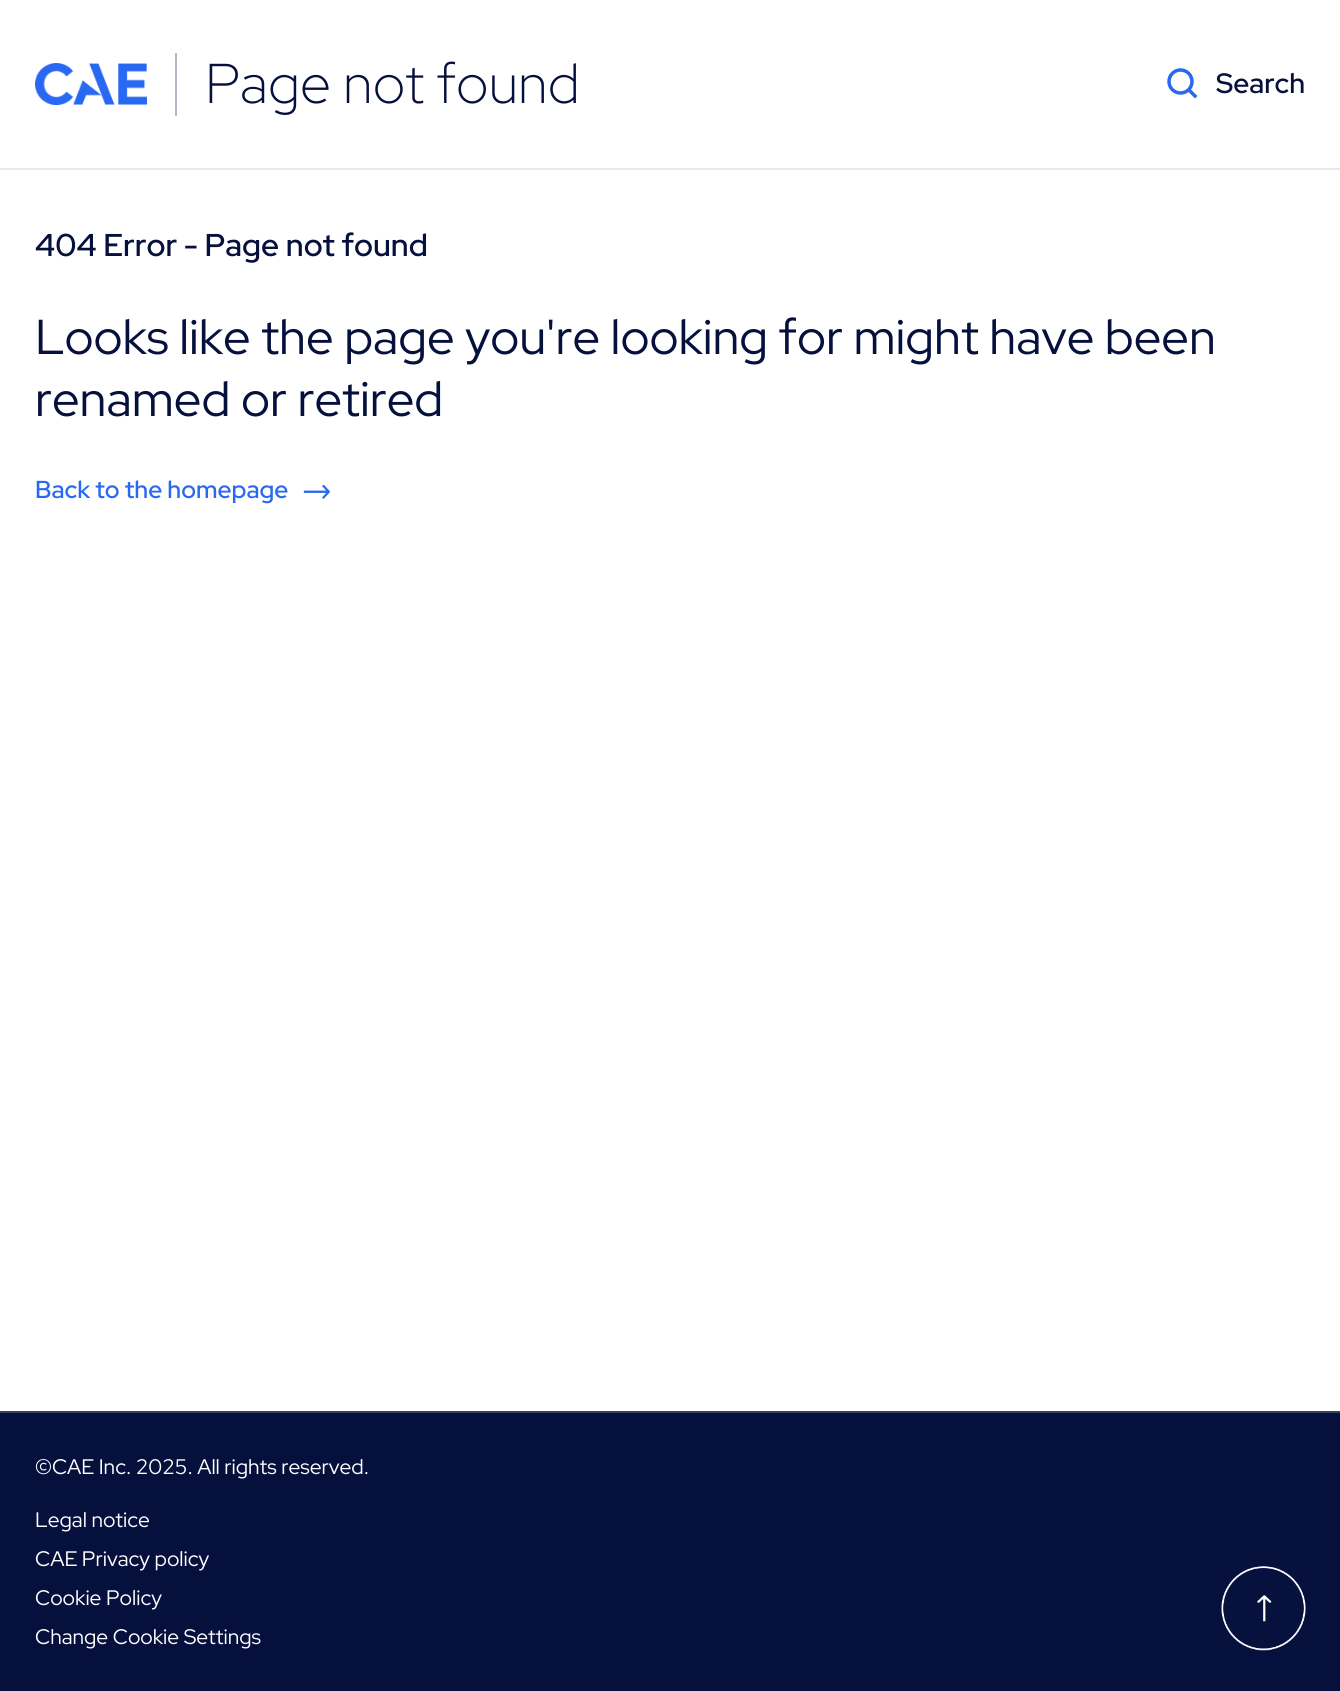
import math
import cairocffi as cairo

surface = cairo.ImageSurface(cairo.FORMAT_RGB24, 1340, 1691)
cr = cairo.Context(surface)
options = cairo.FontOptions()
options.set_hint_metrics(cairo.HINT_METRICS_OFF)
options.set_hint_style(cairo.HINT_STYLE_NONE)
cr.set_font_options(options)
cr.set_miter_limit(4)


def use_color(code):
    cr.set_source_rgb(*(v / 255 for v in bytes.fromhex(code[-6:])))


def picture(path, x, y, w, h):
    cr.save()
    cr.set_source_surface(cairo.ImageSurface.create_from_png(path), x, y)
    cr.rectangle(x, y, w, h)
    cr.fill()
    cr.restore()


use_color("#ffffff")
cr.paint()
use_color("#e8e9ed")
cr.rectangle(0, 168, 1340, 2)
cr.fill()
picture("img1.png", 35, 63, 112, 43)
use_color("#b4b7c5")
cr.rectangle(175, 53, 2, 63)
cr.fill()
cr.select_font_face("Red Hat Display Light")
cr.set_font_size(56)
use_color("#06103d")
cr.move_to(205, 103)
cr.show_text("Page not found")
cr.new_path()
cr.arc(1180.5, 81.5, 11.5, 0, 2 * math.pi)
use_color("#2969f2")
cr.set_line_width(3.5)
cr.stroke()
cr.new_path()
cr.move_to(1195, 96)
cr.line_to(1190, 91)
cr.set_line_cap(cairo.LINE_CAP_SQUARE)
cr.set_line_join(cairo.LINE_JOIN_ROUND)
cr.stroke()
cr.select_font_face("Red Hat Display SemiBold")
cr.set_font_size(28)
use_color("#06103d")
cr.move_to(1216, 93)
cr.show_text("Search")
cr.set_font_size(31.5)
cr.move_to(35, 256)
cr.show_text("404 Error - Page not found")
cr.select_font_face("Red Hat Display")
cr.set_font_size(49)
cr.move_to(35, 354)
cr.show_text("Looks like the page you're looking for might have been")
cr.move_to(35, 416)
cr.show_text("renamed or retired")
cr.select_font_face("Red Hat Display SemiBold")
cr.set_font_size(24.5)
use_color("#2969f2")
cr.move_to(35, 498)
cr.show_text("Back to the homepage")
picture("img2.png", 303, 485, 27, 14)
use_color("#06103d")
cr.rectangle(0, 1413, 1340, 278)
cr.fill()
use_color("#384064")
cr.rectangle(0, 1411, 1340, 2)
cr.fill()
cr.select_font_face("Red Hat Display")
cr.set_font_size(21)
use_color("#ffffff")
cr.move_to(35, 1474)
cr.show_text("©CAE Inc. 2025. All rights reserved.")
cr.move_to(35, 1527)
cr.show_text("Legal notice")
cr.move_to(35, 1566)
cr.show_text("CAE Privacy policy")
cr.move_to(35, 1605)
cr.show_text("Cookie Policy")
cr.move_to(35, 1644)
cr.show_text("Change Cookie Settings")
picture("img3.png", 1221, 1566, 85, 85)
surface.write_to_png("result.png")
